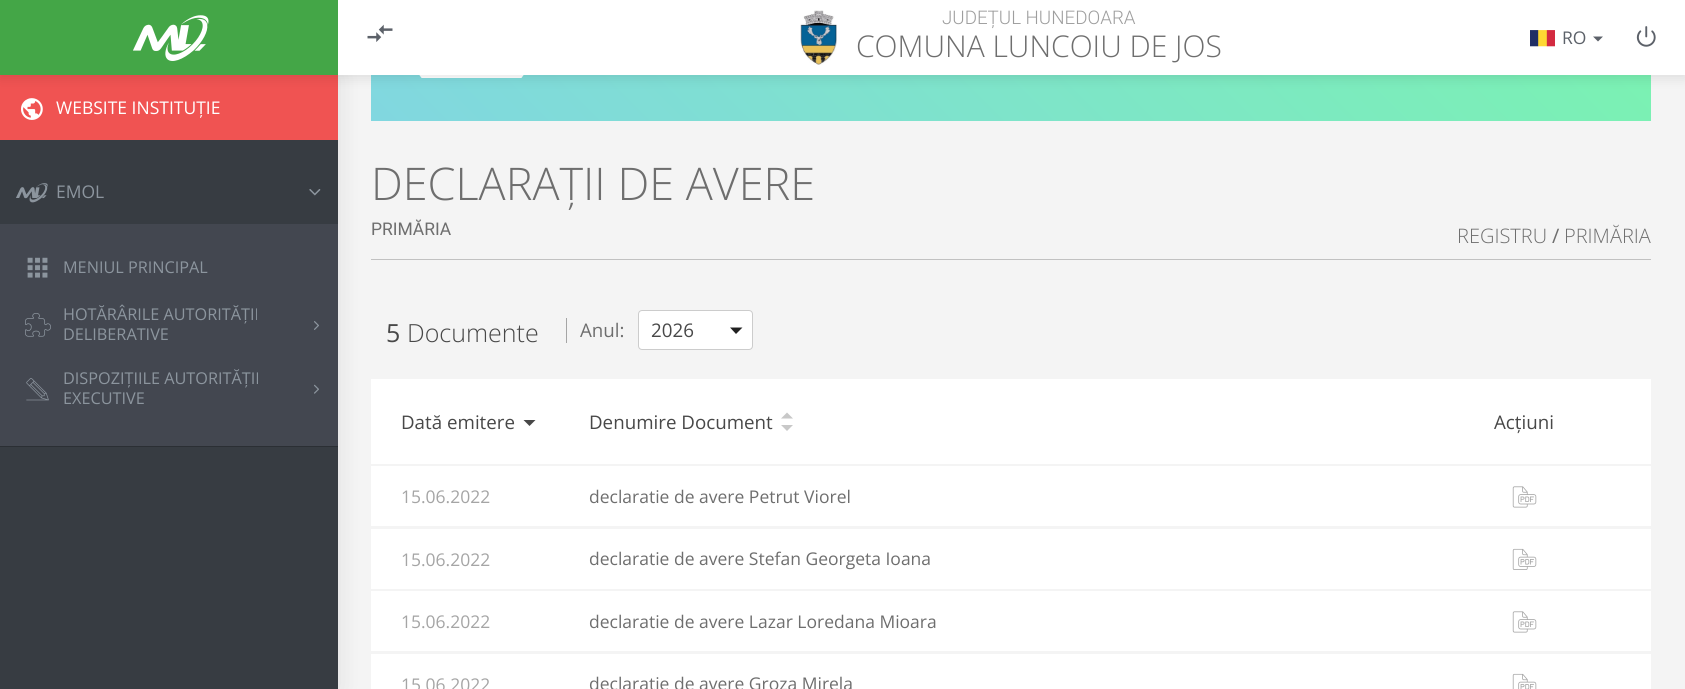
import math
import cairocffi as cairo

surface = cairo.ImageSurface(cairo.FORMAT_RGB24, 1685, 689)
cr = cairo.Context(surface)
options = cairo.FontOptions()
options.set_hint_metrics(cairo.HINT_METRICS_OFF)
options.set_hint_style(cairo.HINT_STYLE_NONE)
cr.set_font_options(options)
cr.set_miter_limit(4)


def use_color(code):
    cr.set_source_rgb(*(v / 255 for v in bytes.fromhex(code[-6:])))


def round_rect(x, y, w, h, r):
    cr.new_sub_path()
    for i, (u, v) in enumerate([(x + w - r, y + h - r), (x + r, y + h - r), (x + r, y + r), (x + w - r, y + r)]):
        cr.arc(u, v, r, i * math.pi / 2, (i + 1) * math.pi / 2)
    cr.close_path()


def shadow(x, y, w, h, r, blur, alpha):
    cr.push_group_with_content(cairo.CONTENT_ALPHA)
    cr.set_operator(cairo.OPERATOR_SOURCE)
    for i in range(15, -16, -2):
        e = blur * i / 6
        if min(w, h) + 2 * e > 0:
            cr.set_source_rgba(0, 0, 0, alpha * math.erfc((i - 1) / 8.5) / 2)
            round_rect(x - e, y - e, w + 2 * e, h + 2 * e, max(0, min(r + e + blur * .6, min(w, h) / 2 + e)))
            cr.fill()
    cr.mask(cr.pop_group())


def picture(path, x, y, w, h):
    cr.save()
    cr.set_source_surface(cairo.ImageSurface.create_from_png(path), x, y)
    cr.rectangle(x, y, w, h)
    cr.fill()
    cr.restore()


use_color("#f4f4f4")
cr.paint()
gradient = cairo.LinearGradient(644, 394, 1378, -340)
gradient.add_color_stop_rgba(0, 0.506, 0.843, 0.878, 1)
gradient.add_color_stop_rgba(1, 0.478, 0.957, 0.682, 1)
cr.set_source(gradient)
cr.rectangle(371, 75, 1280, 46)
cr.fill()
use_color("#c1c1c1")
cr.rectangle(371, 259, 1280, 1)
cr.fill()
use_color("#ffffff")
cr.rectangle(371, 379, 1280, 85)
cr.fill()
cr.rectangle(371, 466, 1280, 60)
cr.fill()
cr.rectangle(371, 529, 1280, 60)
cr.fill()
cr.rectangle(371, 591, 1280, 60)
cr.fill()
cr.rectangle(371, 654, 1280, 35)
cr.fill()
use_color("#000000")
shadow(1, 75, 338, 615, 0, 12.5, 0.08)
use_color("#f05352")
cr.rectangle(0, 75, 338, 65)
cr.fill()
cr.save()
cr.rectangle(409, 0, 125, 78)
cr.clip()
use_color("#ffffff")
cr.arc(471.5, 40.5, 62.5, 0, 2 * math.pi)
cr.fill()
cr.restore()
use_color("#000000")
shadow(0, 3, 1685, 75, 0, 6, 0.1)
use_color("#ffffff")
cr.rectangle(338, 0, 1347, 75)
cr.fill()
use_color("#44a647")
cr.rectangle(0, 0, 338, 75)
cr.fill()
picture("img1.png", 133, 15, 76, 46)
picture("img2.png", 367, 24, 26, 18)
picture("img3.png", 800, 10, 37, 55)
cr.select_font_face("Roboto Light")
cr.set_font_size(18.75)
use_color("#9e9e9e")
cr.move_to(942, 24)
cr.show_text("JUDEȚUL HUNEDOARA")
cr.select_font_face("Open Sans Light")
cr.set_font_size(30)
use_color("#6e6e6e")
cr.move_to(856, 57)
cr.show_text("COMUNA LUNCOIU DE JOS")
picture("img4.png", 1530, 30, 25, 17)
cr.select_font_face("Open Sans")
cr.set_font_size(17.5)
use_color("#5c6169")
cr.move_to(1562, 44)
cr.show_text("RO")
cr.new_path()
cr.move_to(1593, 36.5)
cr.line_to(1603, 36.5)
cr.line_to(1598, 41.5)
cr.close_path()
cr.fill()
picture("img5.png", 1636, 26, 20, 21)
use_color("#373c42")
cr.rectangle(0, 140, 338, 549)
cr.fill()
picture("img6.png", 21, 98, 22, 22)
use_color("#ffffff")
cr.move_to(56, 114)
cr.show_text("WEBSITE INSTITUȚIE")
use_color("#2b2f34")
cr.rectangle(0, 446, 338, 1)
cr.fill()
picture("img7.png", 16, 183, 32, 20)
use_color("#8c959e")
cr.move_to(56, 198)
cr.show_text("EMOL")
picture("img8.png", 309, 189, 12, 7)
use_color("#434750")
cr.rectangle(0, 224, 338, 222)
cr.fill()
picture("img9.png", 27, 257, 21, 21)
cr.set_font_size(16.25)
use_color("#8c959e")
cr.move_to(63, 273)
cr.show_text("MENIUL PRINCIPAL")
picture("img10.png", 25, 313, 26, 24)
cr.move_to(63, 320)
cr.show_text("HOTĂRÂRILE AUTORITĂȚII")
cr.move_to(63, 340)
cr.show_text("DELIBERATIVE")
picture("img11.png", 314, 321, 5, 9)
picture("img12.png", 26, 378, 23, 23)
cr.move_to(63, 384)
cr.show_text("DISPOZIȚIILE AUTORITĂȚII")
cr.move_to(63, 404)
cr.show_text("EXECUTIVE")
picture("img13.png", 314, 384, 5, 10)
cr.select_font_face("Open Sans Light")
cr.set_font_size(45)
use_color("#6e6e6e")
cr.move_to(371, 200)
cr.show_text("DECLARAȚII DE AVERE")
cr.select_font_face("Roboto")
cr.set_font_size(17.5)
cr.move_to(371, 235)
cr.show_text("PRIMĂRIA")
cr.select_font_face("Open Sans Light")
cr.set_font_size(20)
cr.move_to(1457, 243)
cr.show_text("REGISTRU")
cr.select_font_face("Open Sans")
cr.move_to(1552, 243)
cr.show_text("/")
cr.select_font_face("Open Sans Light")
cr.move_to(1564, 243)
cr.show_text("PRIMĂRIA")
cr.select_font_face("Open Sans")
cr.set_font_size(25)
use_color("#484848")
cr.move_to(386, 342)
cr.show_text("5")
cr.select_font_face("Open Sans Light")
cr.move_to(407, 342)
cr.show_text("Documente")
use_color("#a5a5a5")
cr.rectangle(566, 318, 1, 25)
cr.fill()
cr.select_font_face("Open Sans")
cr.set_font_size(18.75)
use_color("#6e6e6e")
cr.move_to(580, 337)
cr.show_text("Anul:")
use_color("#ffffff")
round_rect(638.5, 310.5, 114, 39, 3.5)
cr.fill_preserve()
use_color("#cccccc")
cr.set_line_width(1)
cr.stroke()
use_color("#484848")
cr.move_to(651, 337)
cr.show_text("2026")
use_color("#212121")
cr.new_path()
cr.move_to(730, 327.5)
cr.line_to(736, 334)
cr.line_to(742.5, 327.5)
cr.close_path()
cr.fill()
use_color("#484848")
cr.move_to(401, 429)
cr.show_text("Dată emitere")
cr.new_path()
cr.move_to(523.5, 420)
cr.line_to(535.5, 420)
cr.line_to(529.5, 426)
cr.close_path()
cr.fill()
cr.move_to(589, 429)
cr.show_text("Denumire Document")
use_color("#c8c8c8")
cr.new_path()
cr.move_to(781, 418.5)
cr.line_to(787, 412.5)
cr.line_to(793, 418.5)
cr.close_path()
cr.move_to(781, 425)
cr.line_to(793, 425)
cr.line_to(787, 431)
cr.close_path()
cr.fill()
use_color("#484848")
cr.move_to(1494, 429)
cr.show_text("Acțiuni")
cr.set_font_size(17.5)
use_color("#a5a5a5")
cr.move_to(401, 503)
cr.show_text("15.06.2022")
use_color("#6e6e6e")
cr.move_to(589, 503)
cr.show_text("declaratie de avere Petrut Viorel")
picture("img14.png", 1512, 486, 25, 22)
use_color("#a5a5a5")
cr.move_to(401, 566)
cr.show_text("15.06.2022")
use_color("#6e6e6e")
cr.move_to(589, 565)
cr.show_text("declaratie de avere Stefan Georgeta Ioana")
picture("img15.png", 1512, 548, 25, 22)
use_color("#a5a5a5")
cr.move_to(401, 628)
cr.show_text("15.06.2022")
use_color("#6e6e6e")
cr.move_to(589, 628)
cr.show_text("declaratie de avere Lazar Loredana Mioara")
picture("img14.png", 1512, 611, 25, 22)
use_color("#a5a5a5")
cr.move_to(401, 691)
cr.show_text("15.06.2022")
use_color("#6e6e6e")
cr.move_to(589, 690)
cr.show_text("declaratie de avere Groza Mirela")
picture("img16.png", 1512, 673, 25, 16)
surface.write_to_png("result.png")
